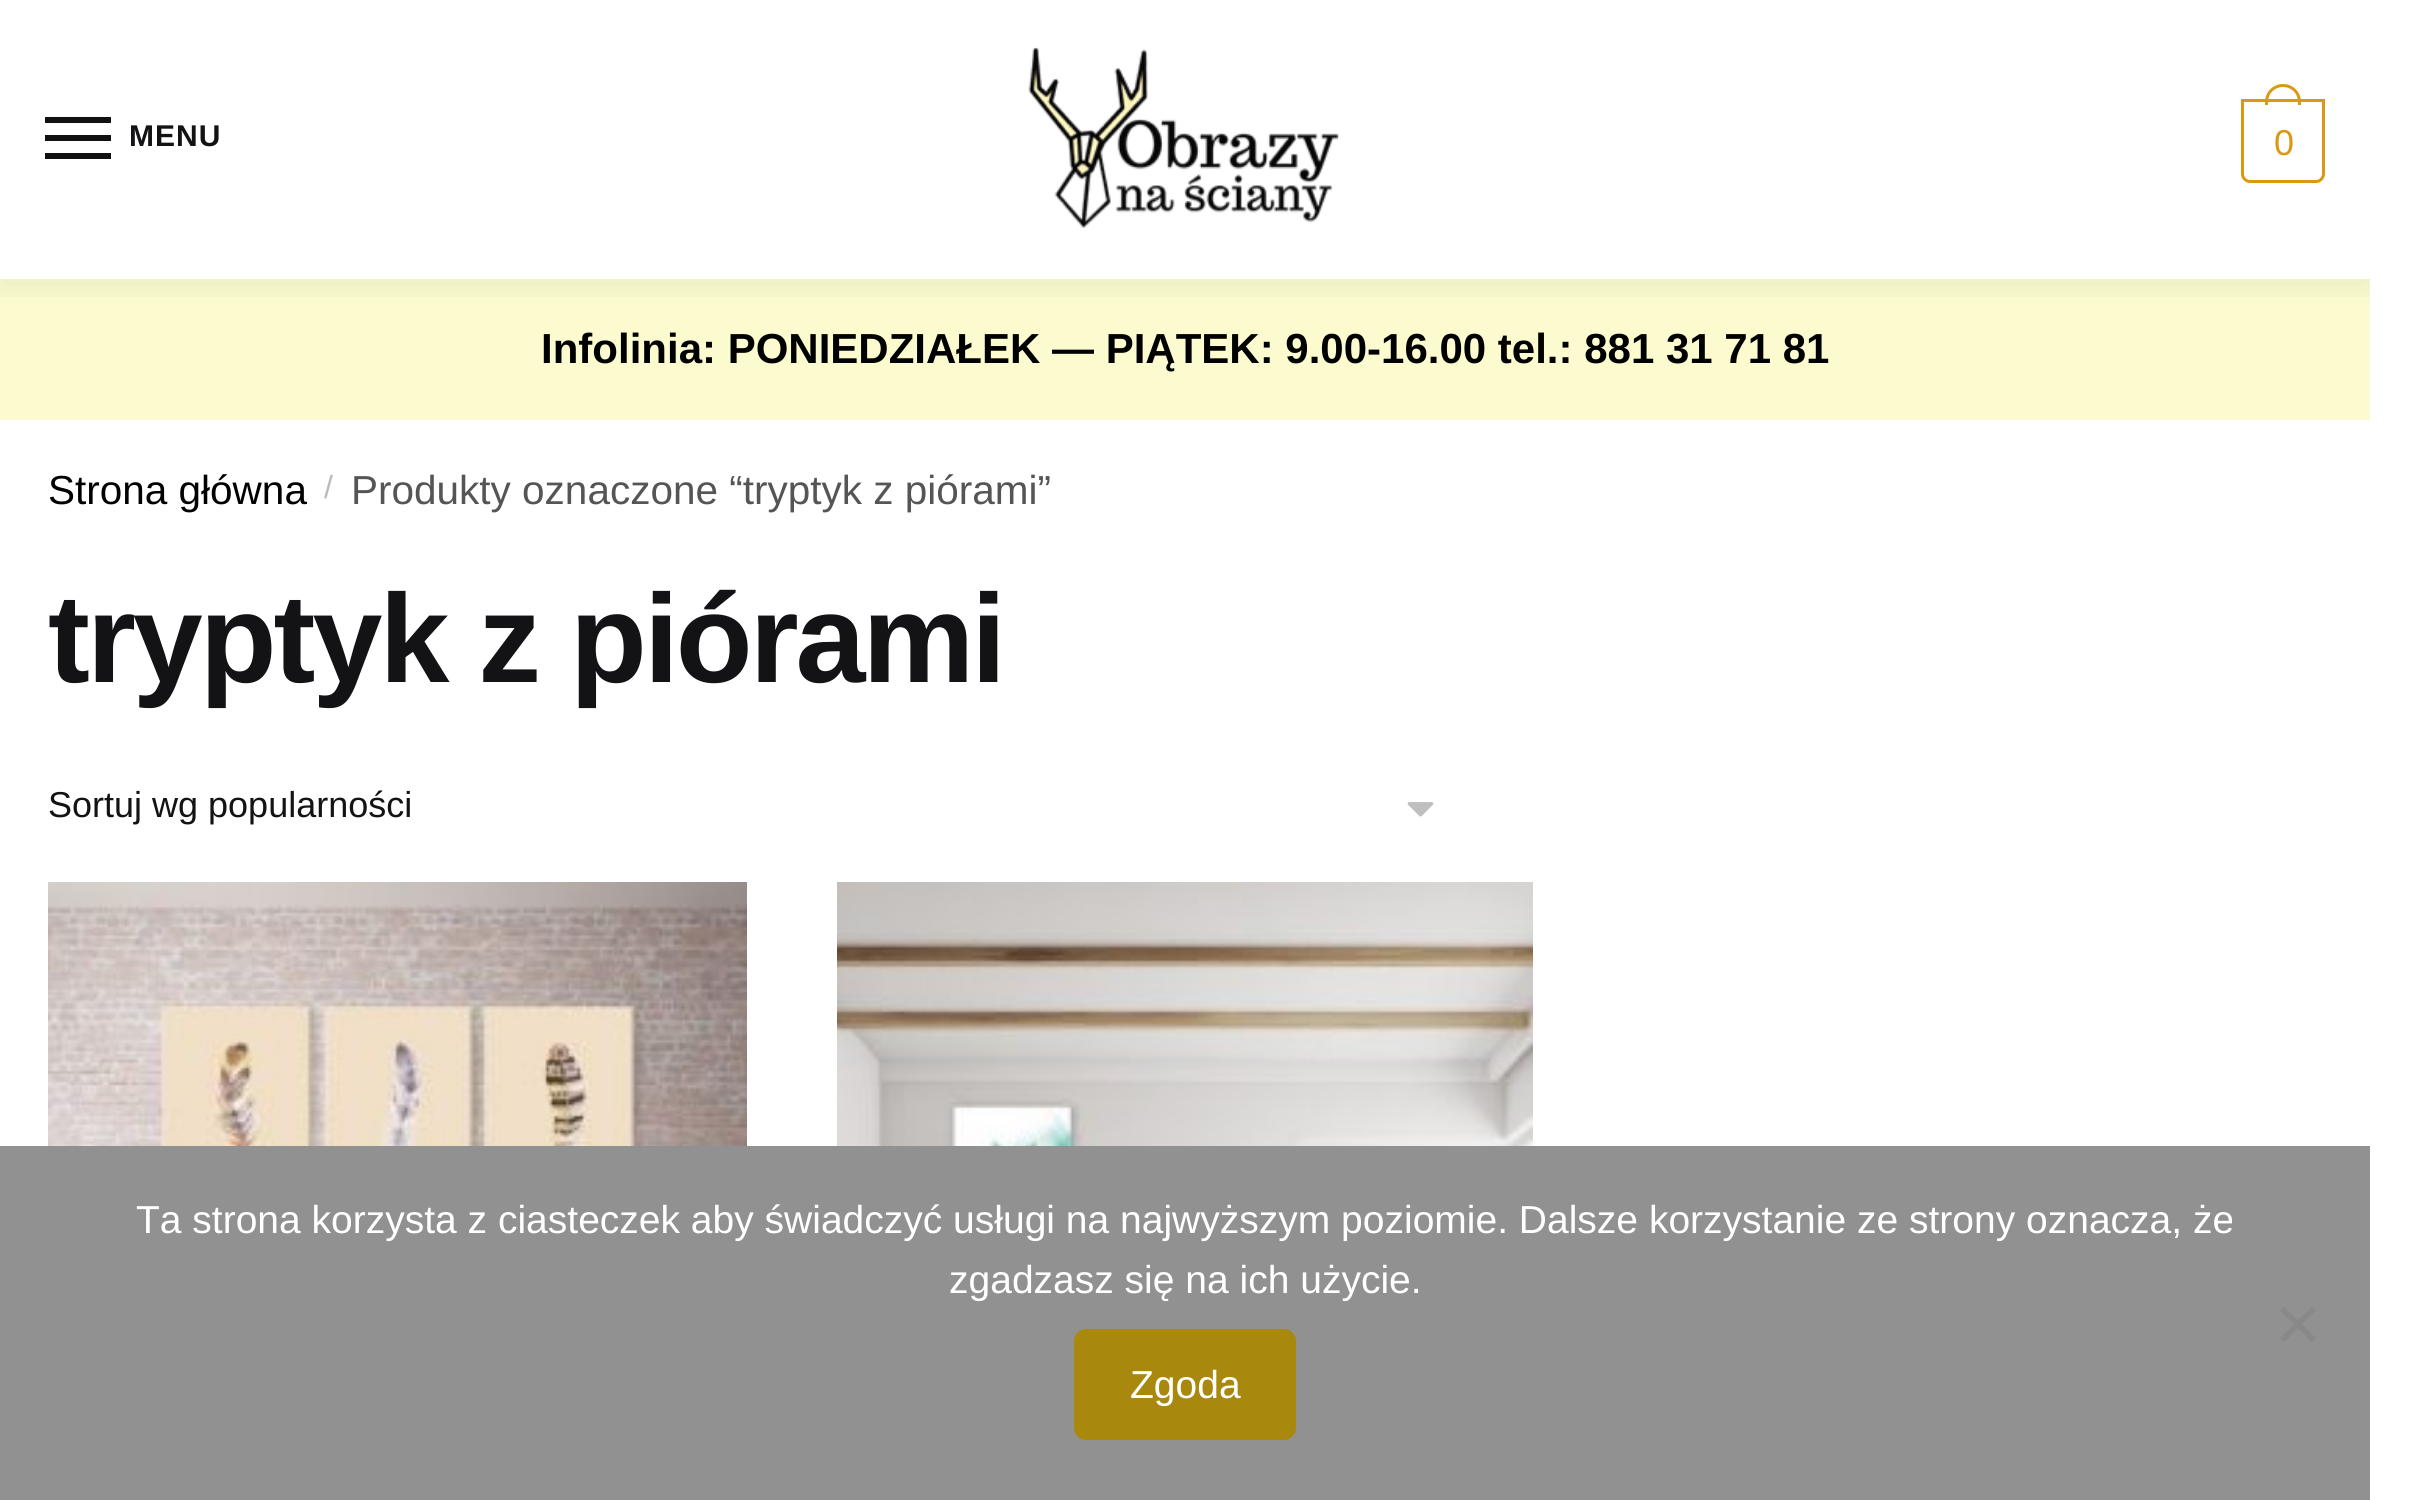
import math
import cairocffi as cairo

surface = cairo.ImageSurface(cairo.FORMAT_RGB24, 2413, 1500)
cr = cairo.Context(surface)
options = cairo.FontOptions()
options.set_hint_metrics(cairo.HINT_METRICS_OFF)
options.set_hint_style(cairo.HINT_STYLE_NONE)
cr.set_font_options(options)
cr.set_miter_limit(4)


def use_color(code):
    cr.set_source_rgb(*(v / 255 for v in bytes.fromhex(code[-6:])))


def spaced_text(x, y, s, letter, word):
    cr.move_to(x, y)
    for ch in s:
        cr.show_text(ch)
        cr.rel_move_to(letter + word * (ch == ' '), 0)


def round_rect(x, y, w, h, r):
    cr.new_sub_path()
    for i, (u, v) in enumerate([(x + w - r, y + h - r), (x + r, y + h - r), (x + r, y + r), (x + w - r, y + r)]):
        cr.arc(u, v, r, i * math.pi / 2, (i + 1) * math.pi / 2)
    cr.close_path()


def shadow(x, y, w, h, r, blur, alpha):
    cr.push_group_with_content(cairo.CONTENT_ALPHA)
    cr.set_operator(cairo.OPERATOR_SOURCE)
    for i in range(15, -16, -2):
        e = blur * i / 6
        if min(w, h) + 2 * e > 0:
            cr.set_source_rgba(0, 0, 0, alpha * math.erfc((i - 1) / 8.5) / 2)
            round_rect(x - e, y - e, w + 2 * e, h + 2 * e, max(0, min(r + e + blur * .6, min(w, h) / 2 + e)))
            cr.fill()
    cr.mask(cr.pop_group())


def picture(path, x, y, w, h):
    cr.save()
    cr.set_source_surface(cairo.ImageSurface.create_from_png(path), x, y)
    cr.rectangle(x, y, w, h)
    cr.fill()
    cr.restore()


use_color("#ffffff")
cr.paint()
use_color("#fbfbcf")
cr.rectangle(0, 279, 2370, 141)
cr.fill()
cr.save()
cr.rectangle(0, 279, 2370, 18)
cr.clip()
use_color("#000000")
shadow(0, 3, 2370, 279, 0, 22.5, 0.08)
cr.restore()
use_color("#111111")
cr.rectangle(45, 117, 66, 6)
cr.fill()
cr.rectangle(45, 135, 66, 6)
cr.fill()
cr.select_font_face("Liberation Sans", cairo.FONT_SLANT_NORMAL, cairo.FONT_WEIGHT_BOLD)
cr.set_font_size(30)
use_color("#131315")
spaced_text(129, 146, "MENU", 1, 0)
use_color("#111111")
cr.rectangle(45, 153, 66, 6)
cr.fill()
picture("img1.png", 1028, 47, 311, 181)
cr.new_path()
cr.move_to(2242.5, 100.5)
cr.line_to(2323.5, 100.5)
cr.line_to(2323.5, 174)
cr.curve_to(2323.5, 178, 2320, 181.5, 2316, 181.5)
cr.line_to(2250, 181.5)
cr.curve_to(2246, 181.5, 2242.5, 178, 2242.5, 174)
cr.close_path()
use_color("#dc9814")
cr.set_line_width(3)
cr.stroke()
cr.set_fill_rule(cairo.FILL_RULE_EVEN_ODD)
cr.new_path()
cr.move_to(2283, 84)
cr.curve_to(2293, 84, 2301, 92, 2301, 102)
cr.line_to(2301, 105)
cr.line_to(2265, 105)
cr.line_to(2265, 102)
cr.curve_to(2265, 92, 2273, 84, 2283, 84)
cr.close_path()
cr.move_to(2283, 87)
cr.curve_to(2291.5, 87, 2298, 93.5, 2298, 102)
cr.line_to(2298, 105)
cr.line_to(2268, 105)
cr.line_to(2268, 102)
cr.curve_to(2268, 93.5, 2274.5, 87, 2283, 87)
cr.close_path()
cr.fill()
cr.select_font_face("Liberation Sans")
cr.set_font_size(36)
spaced_text(2274, 155, "0", -2, 0)
use_color("#ffffff")
cr.rectangle(2370, 0, 26, 297)
cr.fill()
cr.select_font_face("Liberation Sans", cairo.FONT_SLANT_NORMAL, cairo.FONT_WEIGHT_BOLD)
cr.set_font_size(42)
use_color("#000000")
cr.move_to(541, 363)
cr.show_text("Infolinia: PONIEDZIAŁEK — PIĄTEK: 9.00-16.00 tel.: 881 31 71 81")
cr.select_font_face("Liberation Sans")
cr.set_font_size(40.5)
cr.move_to(48, 504)
cr.show_text("Strona główna")
cr.set_font_size(32)
use_color("#bbbbbb")
cr.move_to(324, 498)
cr.show_text("/")
cr.set_font_size(40.5)
use_color("#555555")
cr.move_to(351, 504)
cr.show_text("Produkty oznaczone “tryptyk z piórami”")
cr.select_font_face("Liberation Sans", cairo.FONT_SLANT_NORMAL, cairo.FONT_WEIGHT_BOLD)
cr.set_font_size(125.75)
use_color("#131315")
spaced_text(48, 682, "tryptyk z piórami", -3, 0)
picture("img2.png", 1407, 802, 27, 15)
cr.select_font_face("Liberation Sans")
cr.set_font_size(36)
cr.move_to(48, 817)
cr.show_text("Sortuj wg popularności")
picture("img3.png", 48, 882, 699, 264)
picture("img4.png", 837, 882, 696, 264)
use_color("#919191")
cr.rectangle(0, 1146, 2370, 354)
cr.fill()
cr.set_font_size(39)
use_color("#ffffff")
cr.move_to(136, 1233)
cr.show_text("Ta strona korzysta z ciasteczek aby świadczyć usługi na najwyższym poziomie. Dalsze korzystanie ze strony oznacza, że")
cr.move_to(949, 1293)
cr.show_text("zgadzasz się na ich użycie.")
use_color("#898989")
cr.set_fill_rule(cairo.FILL_RULE_WINDING)
cr.new_path()
cr.move_to(2312, 1306.5)
cr.line_to(2316, 1310.5)
cr.line_to(2284, 1342.5)
cr.line_to(2280, 1338)
cr.close_path()
cr.fill()
cr.new_path()
cr.move_to(2280, 1310.5)
cr.line_to(2284, 1306.5)
cr.line_to(2316, 1338)
cr.line_to(2312, 1342.5)
cr.close_path()
cr.fill()
use_color("#a8890d")
round_rect(1074, 1329, 222, 111, 12)
cr.fill()
use_color("#ffffff")
cr.move_to(1130, 1398)
cr.show_text("Zgoda")
surface.write_to_png("result.png")
